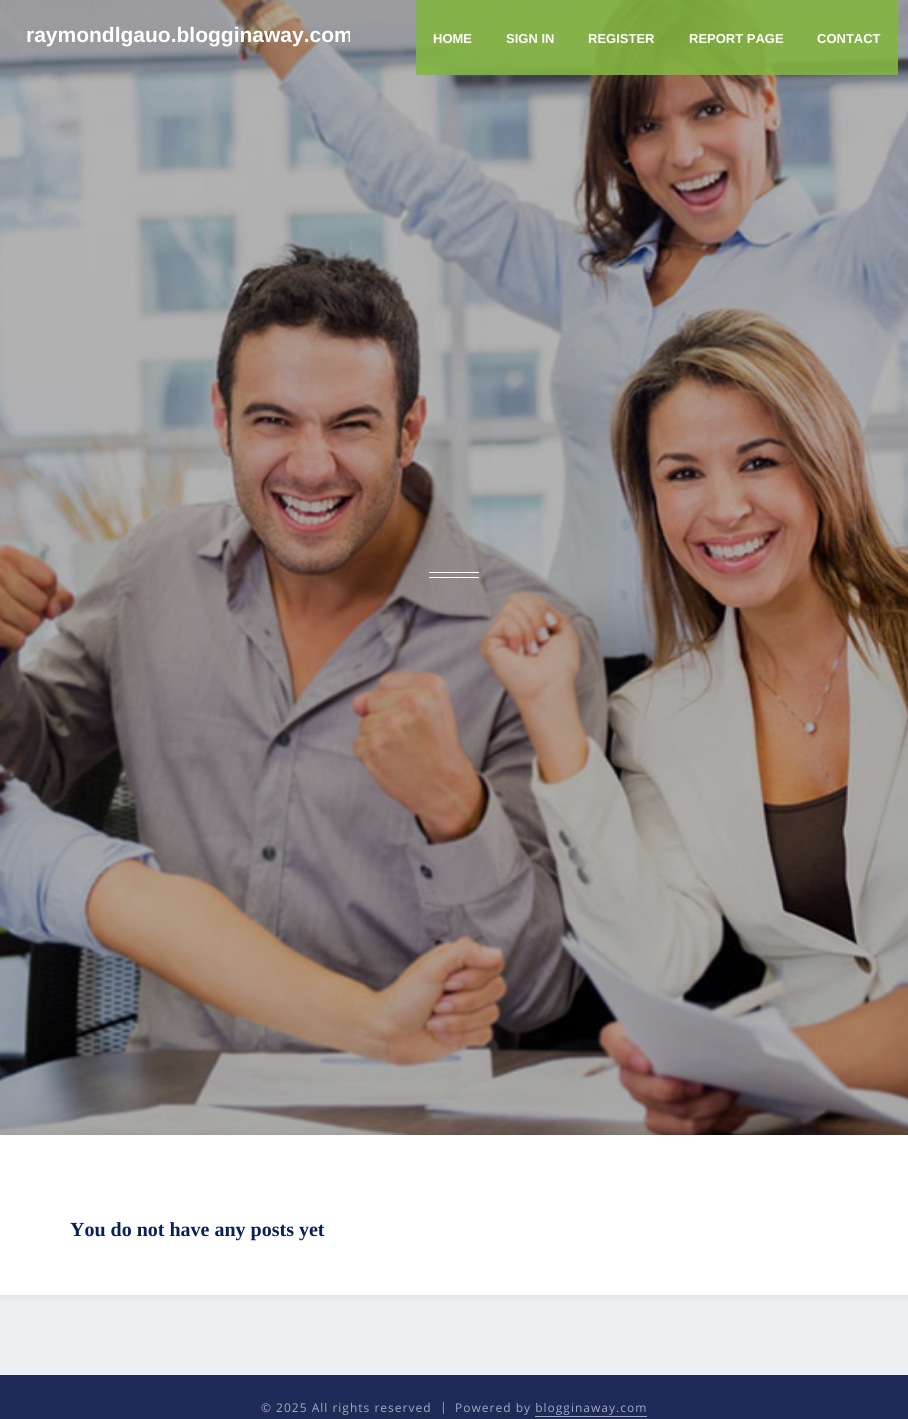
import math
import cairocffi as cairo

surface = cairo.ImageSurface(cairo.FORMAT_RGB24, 908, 1419)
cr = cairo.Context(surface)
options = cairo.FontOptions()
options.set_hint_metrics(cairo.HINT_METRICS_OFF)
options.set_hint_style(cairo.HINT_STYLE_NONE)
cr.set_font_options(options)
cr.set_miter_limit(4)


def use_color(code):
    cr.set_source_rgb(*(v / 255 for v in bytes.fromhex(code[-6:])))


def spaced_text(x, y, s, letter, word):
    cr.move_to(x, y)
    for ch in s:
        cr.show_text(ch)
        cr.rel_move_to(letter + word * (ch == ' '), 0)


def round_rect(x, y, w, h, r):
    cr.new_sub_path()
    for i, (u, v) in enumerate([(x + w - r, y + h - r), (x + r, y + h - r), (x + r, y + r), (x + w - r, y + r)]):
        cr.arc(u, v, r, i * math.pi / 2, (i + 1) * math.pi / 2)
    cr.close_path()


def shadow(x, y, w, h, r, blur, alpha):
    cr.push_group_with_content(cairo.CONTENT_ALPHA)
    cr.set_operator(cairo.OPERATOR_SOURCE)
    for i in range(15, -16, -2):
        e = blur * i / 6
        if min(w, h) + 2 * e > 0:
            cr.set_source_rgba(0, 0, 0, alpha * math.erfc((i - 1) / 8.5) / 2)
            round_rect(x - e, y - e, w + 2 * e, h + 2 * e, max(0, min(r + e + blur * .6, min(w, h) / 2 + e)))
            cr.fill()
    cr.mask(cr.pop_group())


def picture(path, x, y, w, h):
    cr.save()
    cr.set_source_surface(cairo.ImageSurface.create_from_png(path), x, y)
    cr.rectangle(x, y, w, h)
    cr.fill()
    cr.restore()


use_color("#ecf0f3")
cr.paint()
picture("img1.png", 0, 0, 908, 1135)
cr.save()
cr.rectangle(22, 7, 328, 60)
cr.clip()
cr.select_font_face("Liberation Sans", cairo.FONT_SLANT_NORMAL, cairo.FONT_WEIGHT_BOLD)
cr.set_font_size(21)
use_color("#ffffff")
cr.move_to(26, 42)
cr.show_text("raymondlgauo.blogginaway.com")
cr.restore()
cr.set_source_rgba(0.514, 0.71, 0.255, 0.9)
cr.rectangle(416, 0, 73, 75)
cr.fill()
cr.select_font_face("Liberation Sans", cairo.FONT_SLANT_NORMAL, cairo.FONT_WEIGHT_BOLD)
cr.set_font_size(13)
use_color("#ffffff")
cr.move_to(433, 43)
cr.show_text("HOME")
cr.set_source_rgba(0.514, 0.71, 0.255, 0.9)
cr.rectangle(489, 0, 82, 75)
cr.fill()
use_color("#ffffff")
cr.move_to(506, 43)
cr.show_text("SIGN IN")
cr.set_source_rgba(0.514, 0.71, 0.255, 0.9)
cr.rectangle(571, 0, 101, 75)
cr.fill()
use_color("#ffffff")
cr.move_to(588, 43)
cr.show_text("REGISTER")
cr.set_source_rgba(0.514, 0.71, 0.255, 0.9)
cr.rectangle(672, 0, 128, 75)
cr.fill()
use_color("#ffffff")
cr.move_to(689, 43)
cr.show_text("REPORT PAGE")
cr.set_source_rgba(0.514, 0.71, 0.255, 0.9)
cr.rectangle(800, 0, 98, 75)
cr.fill()
use_color("#ffffff")
cr.move_to(817, 43)
cr.show_text("CONTACT")
cr.rectangle(429, 572, 50, 1)
cr.fill()
cr.rectangle(429, 577, 50, 1)
cr.fill()
use_color("#000000")
shadow(0, 1135, 908, 160, 0, 5, 0.1)
use_color("#ffffff")
cr.rectangle(0, 1135, 908, 160)
cr.fill()
cr.select_font_face("Liberation Serif", cairo.FONT_SLANT_NORMAL, cairo.FONT_WEIGHT_BOLD)
cr.set_font_size(20)
use_color("#092056")
cr.move_to(70, 1236)
cr.show_text("You do not have any posts yet")
use_color("#1f2a58")
cr.rectangle(0, 1375, 908, 44)
cr.fill()
cr.select_font_face("Open Sans")
cr.set_font_size(12)
use_color("#a5aabc")
spaced_text(261, 1412, "© 2025 All rights reserved", 1, 0)
spaced_text(440, 1411, "|", 1, 0)
spaced_text(455, 1412, "Powered by blogginaway.com", 1, 0)
cr.rectangle(535, 1416, 112, 1)
cr.fill()
surface.write_to_png("result.png")
